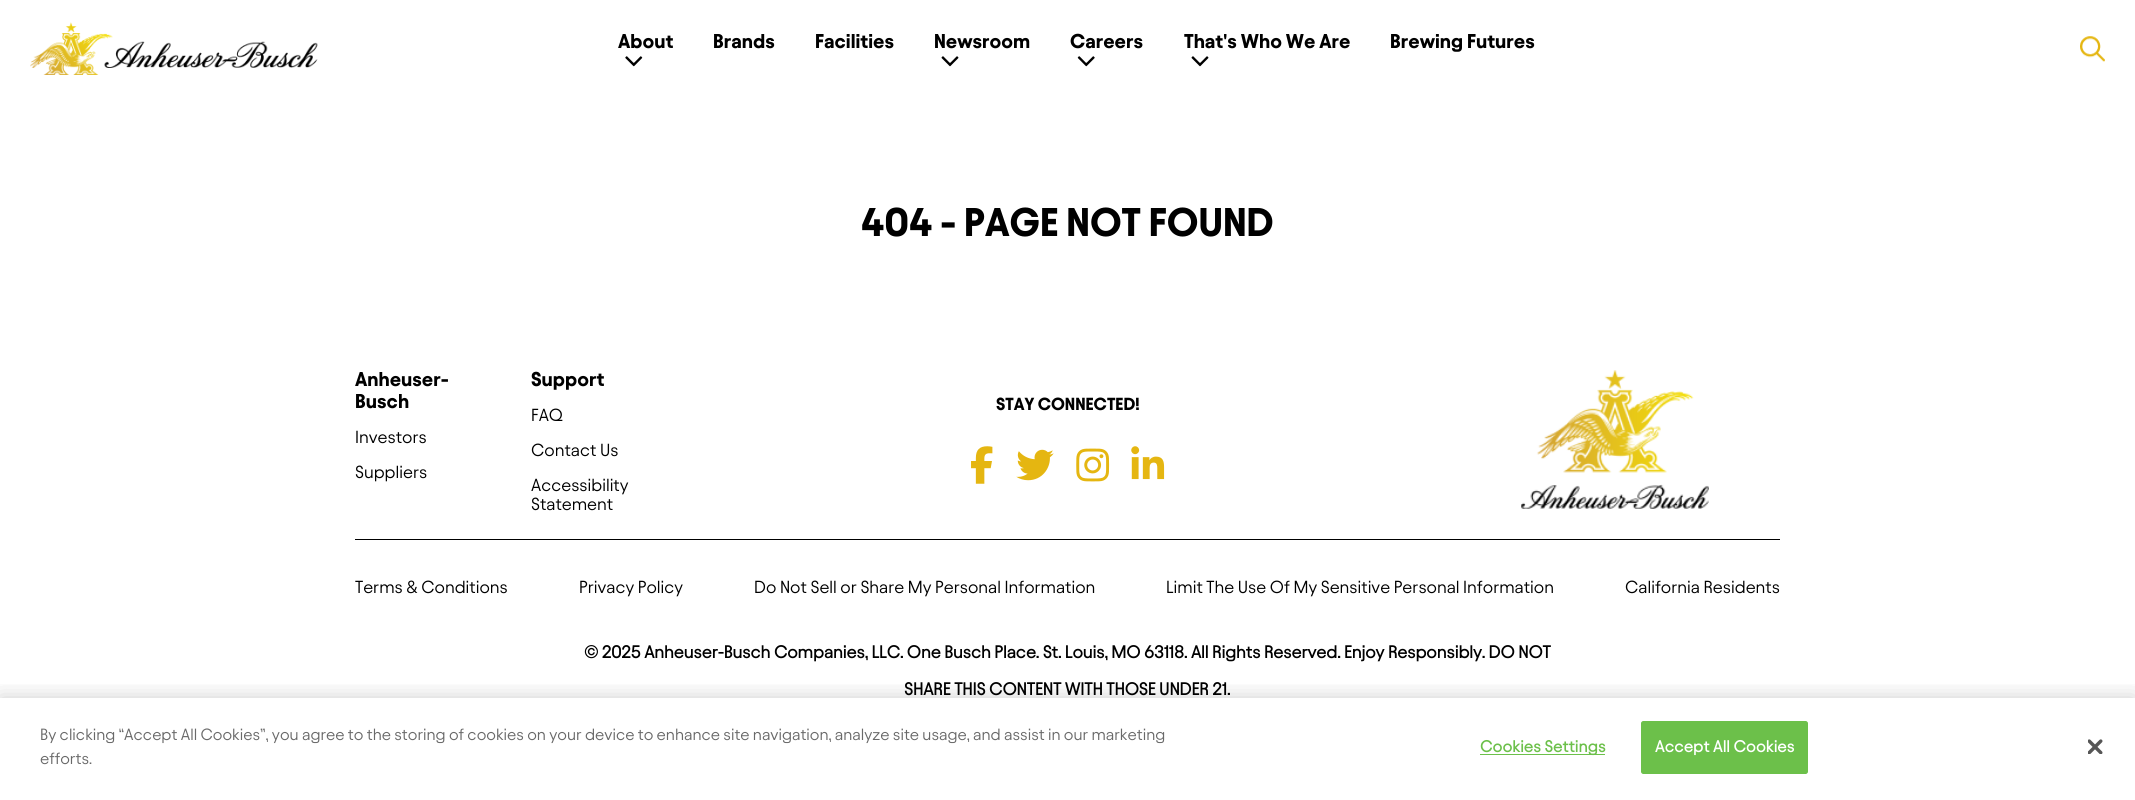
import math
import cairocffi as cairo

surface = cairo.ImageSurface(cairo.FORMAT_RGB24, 2135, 800)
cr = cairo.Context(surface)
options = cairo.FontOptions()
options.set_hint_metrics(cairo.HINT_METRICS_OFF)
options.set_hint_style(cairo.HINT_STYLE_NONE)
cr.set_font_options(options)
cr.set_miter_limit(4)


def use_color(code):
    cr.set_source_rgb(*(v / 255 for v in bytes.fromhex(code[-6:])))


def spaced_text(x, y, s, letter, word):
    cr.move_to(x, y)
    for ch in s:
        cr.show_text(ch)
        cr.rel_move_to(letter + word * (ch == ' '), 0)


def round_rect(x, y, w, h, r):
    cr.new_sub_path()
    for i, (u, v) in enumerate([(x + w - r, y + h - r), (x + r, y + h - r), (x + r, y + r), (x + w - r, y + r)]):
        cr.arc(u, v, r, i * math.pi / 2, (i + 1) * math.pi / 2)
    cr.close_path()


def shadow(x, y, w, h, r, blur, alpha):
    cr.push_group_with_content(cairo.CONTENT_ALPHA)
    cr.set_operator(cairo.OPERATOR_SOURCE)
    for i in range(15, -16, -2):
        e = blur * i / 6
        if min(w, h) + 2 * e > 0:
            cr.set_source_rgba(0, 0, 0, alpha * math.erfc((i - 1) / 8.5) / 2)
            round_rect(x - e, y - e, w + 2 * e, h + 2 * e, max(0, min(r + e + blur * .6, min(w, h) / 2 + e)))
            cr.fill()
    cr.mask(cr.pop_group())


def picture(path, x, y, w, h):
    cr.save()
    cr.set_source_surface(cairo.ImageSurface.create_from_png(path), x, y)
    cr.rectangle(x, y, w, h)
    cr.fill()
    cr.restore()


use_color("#ffffff")
cr.paint()
picture("img1.png", 30, 22, 288, 53)
cr.select_font_face("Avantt", cairo.FONT_SLANT_NORMAL, cairo.FONT_WEIGHT_BOLD)
cr.set_font_size(20)
use_color("#000000")
cr.move_to(618, 48)
cr.show_text("About")
picture("img2.png", 625, 56, 18, 11)
cr.move_to(713, 48)
cr.show_text("Brands")
cr.move_to(815, 48)
cr.show_text("Facilities")
cr.move_to(934, 48)
cr.show_text("Newsroom")
picture("img3.png", 941, 56, 18, 11)
cr.move_to(1070, 48)
cr.show_text("Careers")
picture("img4.png", 1077, 56, 18, 11)
cr.move_to(1184, 48)
cr.show_text("That's Who We Are")
picture("img3.png", 1191, 56, 18, 11)
cr.move_to(1390, 48)
cr.show_text("Brewing Futures")
picture("img5.png", 2080, 36, 25, 26)
cr.set_font_size(40)
cr.move_to(861, 236)
cr.show_text("404 - PAGE NOT FOUND")
cr.set_font_size(20)
cr.move_to(355, 386)
cr.show_text("Anheuser-")
cr.move_to(355, 408)
cr.show_text("Busch")
cr.select_font_face("Avantt")
cr.set_font_size(17.5)
cr.move_to(355, 443)
cr.show_text("Investors")
cr.move_to(355, 478)
cr.show_text("Suppliers")
cr.select_font_face("Avantt", cairo.FONT_SLANT_NORMAL, cairo.FONT_WEIGHT_BOLD)
cr.set_font_size(20)
cr.move_to(531, 386)
cr.show_text("Support")
cr.select_font_face("Avantt")
cr.set_font_size(17.5)
cr.move_to(531, 421)
cr.show_text("FAQ")
cr.move_to(531, 456)
cr.show_text("Contact Us")
cr.move_to(531, 491)
cr.show_text("Accessibility")
cr.move_to(531, 510)
cr.show_text("Statement")
cr.select_font_face("Avantt", cairo.FONT_SLANT_NORMAL, cairo.FONT_WEIGHT_BOLD)
cr.move_to(996, 410)
cr.show_text("STAY CONNECTED!")
picture("img6.png", 971, 446, 22, 38)
picture("img7.png", 1016, 449, 38, 32)
picture("img8.png", 1076, 448, 34, 34)
picture("img9.png", 1131, 446, 34, 34)
picture("img10.png", 1521, 370, 188, 139)
cr.rectangle(355, 539, 1425, 1)
cr.fill()
cr.select_font_face("Avantt")
cr.move_to(355, 593)
cr.show_text("Terms & Conditions")
cr.move_to(579, 593)
cr.show_text("Privacy Policy")
cr.move_to(754, 593)
cr.show_text("Do Not Sell or Share My Personal Information")
cr.move_to(1166, 593)
cr.show_text("Limit The Use Of My Sensitive Personal Information")
cr.move_to(1625, 593)
cr.show_text("California Residents")
cr.select_font_face("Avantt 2", cairo.FONT_SLANT_NORMAL, cairo.FONT_WEIGHT_BOLD)
cr.move_to(584, 658)
cr.show_text("© 2025 Anheuser-Busch Companies, LLC. One Busch Place. St. Louis, MO 63118. All Rights Reserved. Enjoy Responsibly. DO NOT")
cr.move_to(904, 695)
cr.show_text("SHARE THIS CONTENT WITH THOSE UNDER 21.")
cr.save()
cr.rectangle(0, 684, 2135, 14)
cr.clip()
use_color("#000000")
shadow(0, 698, 2135, 102, 0, 11, 0.2)
cr.restore()
cr.select_font_face("Avantt")
cr.set_font_size(16.25)
use_color("#696969")
cr.move_to(40, 740)
cr.show_text("By clicking “Accept All Cookies”, you agree to the storing of cookies on your device to enhance site navigation, analyze site usage, and assist in our marketing")
cr.move_to(40, 764)
cr.show_text("efforts.")
use_color("#6cc04a")
cr.rectangle(1480, 754, 125, 1)
cr.fill()
cr.select_font_face("Avantt 2", cairo.FONT_SLANT_NORMAL, cairo.FONT_WEIGHT_BOLD)
spaced_text(1480, 752, "Cookies Settings", 0.2, 0)
round_rect(1641.5, 721.5, 166, 52, 2)
cr.fill_preserve()
cr.set_line_width(1)
cr.stroke()
use_color("#ffffff")
spaced_text(1655, 752, "Accept All Cookies", 0.2, 0)
picture("img11.png", 2088, 739, 15, 15)
surface.write_to_png("result.png")
